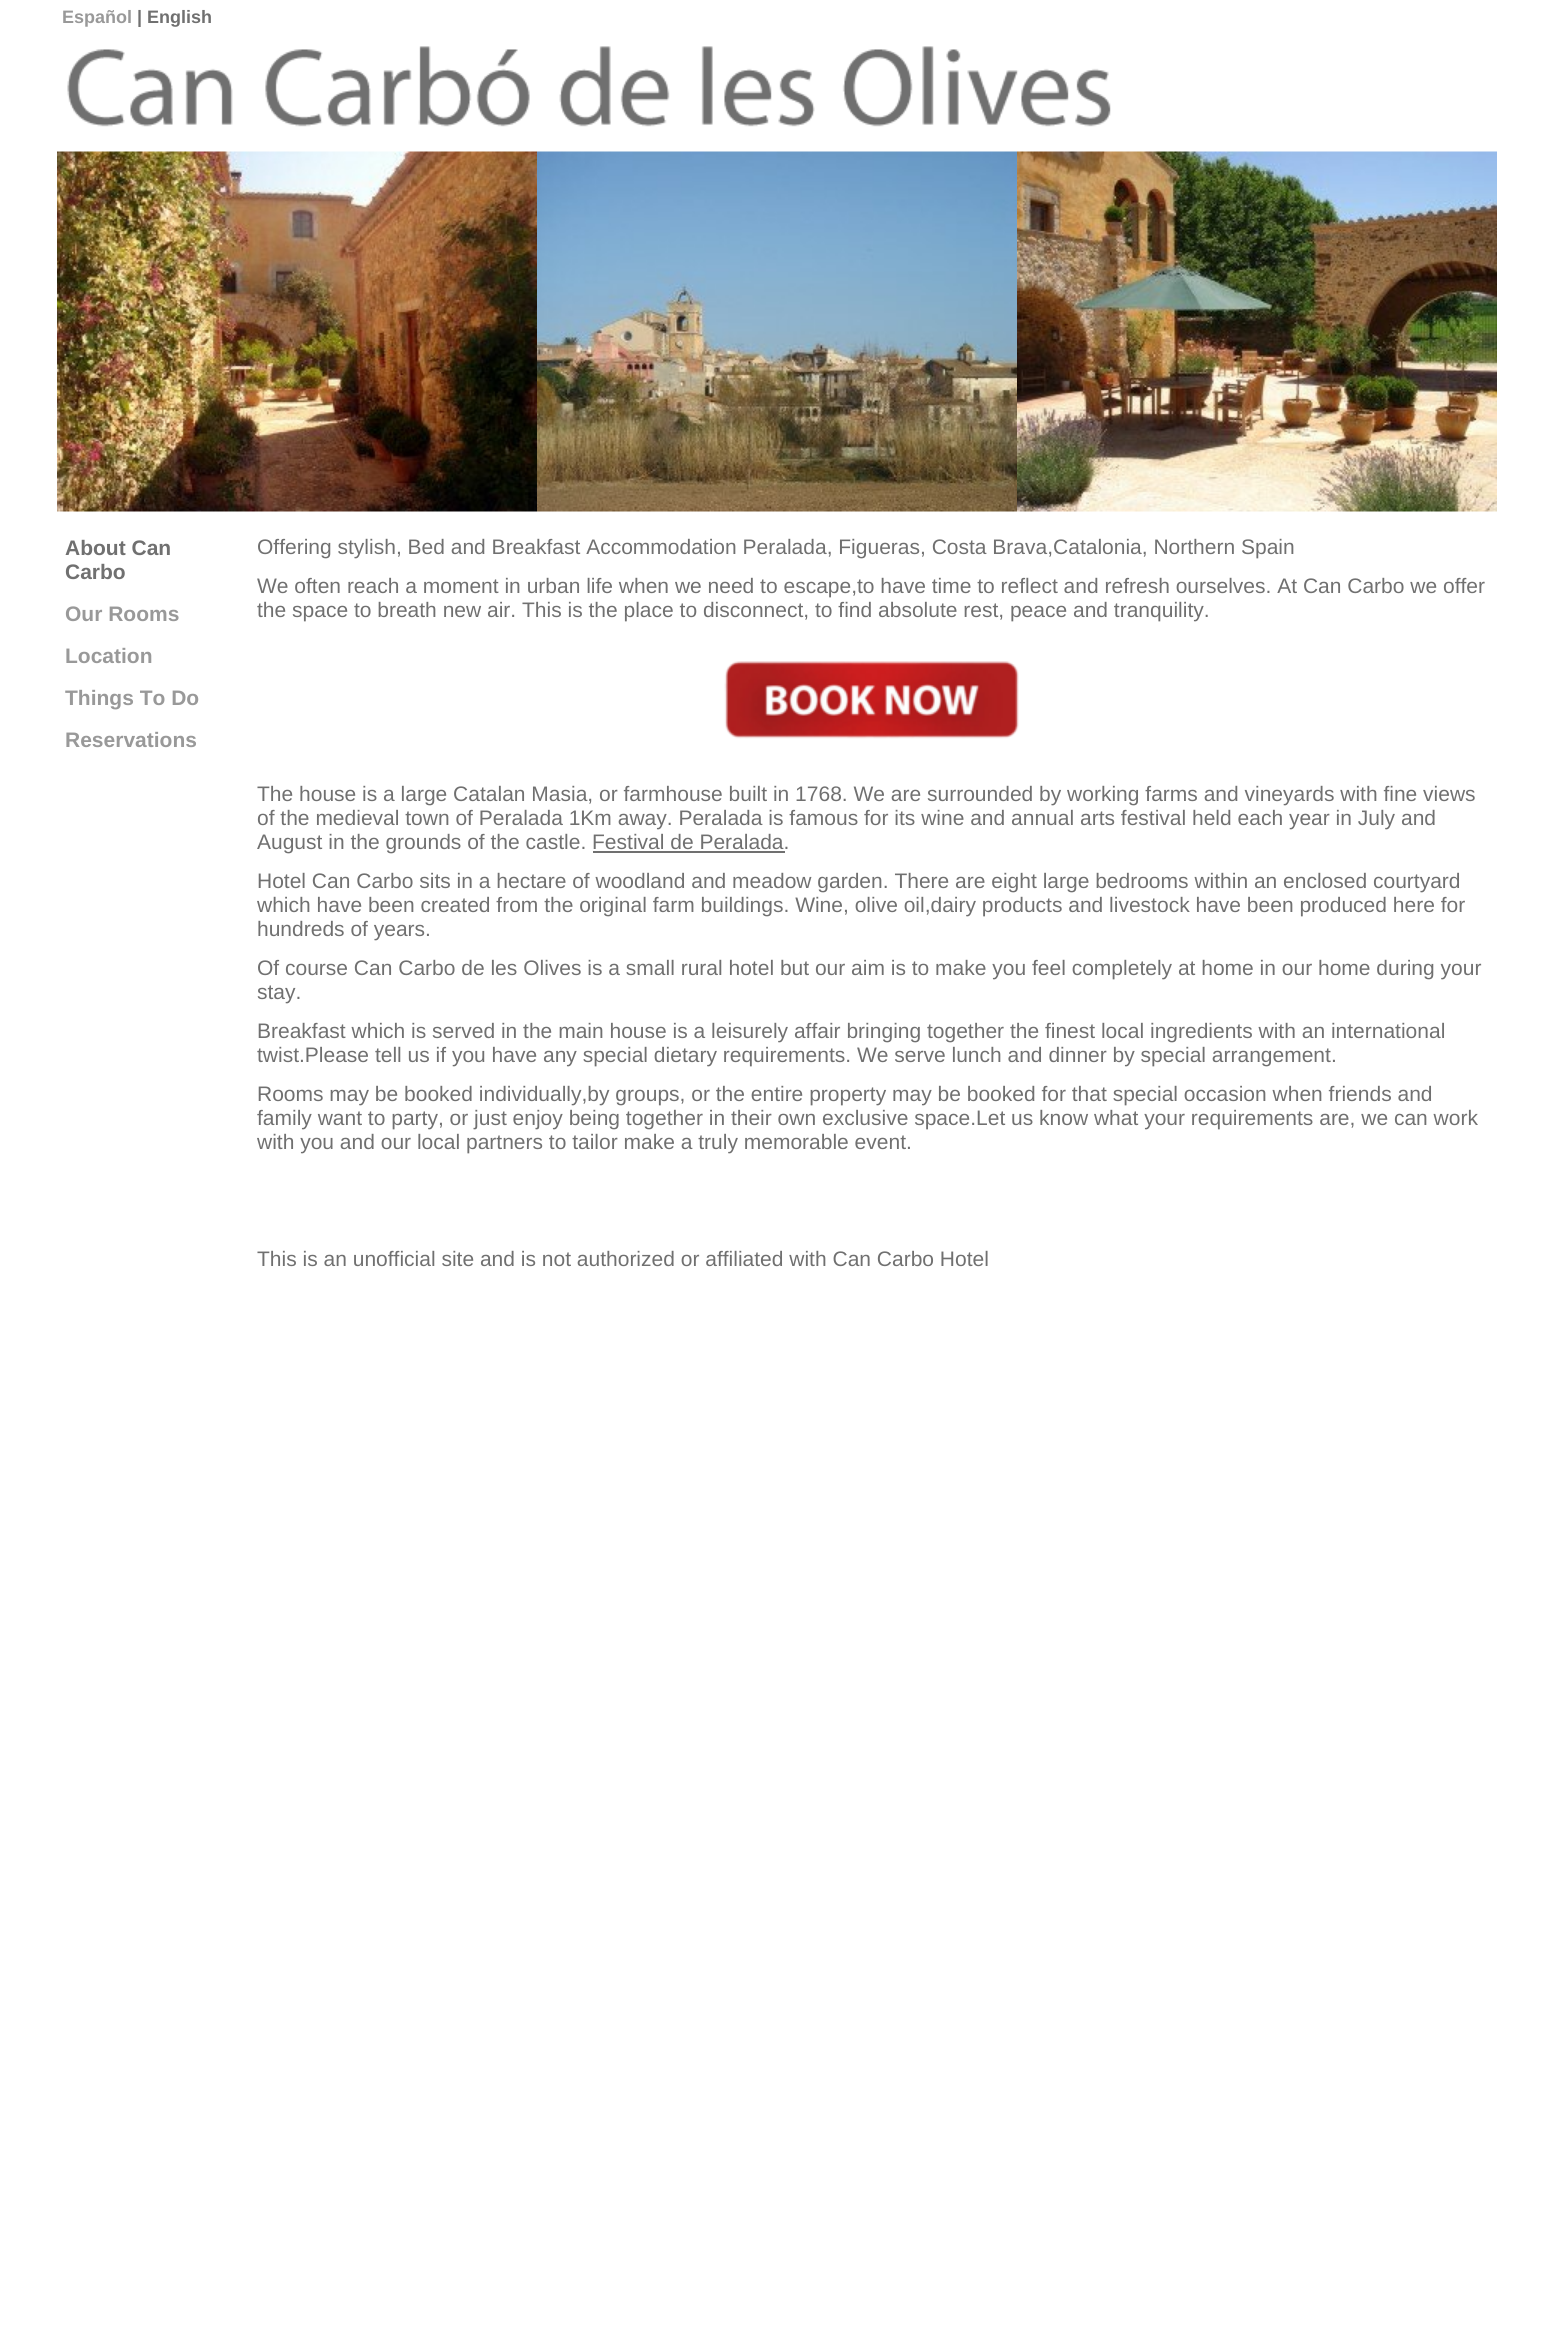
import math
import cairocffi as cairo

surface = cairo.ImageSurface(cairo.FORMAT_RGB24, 1552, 2345)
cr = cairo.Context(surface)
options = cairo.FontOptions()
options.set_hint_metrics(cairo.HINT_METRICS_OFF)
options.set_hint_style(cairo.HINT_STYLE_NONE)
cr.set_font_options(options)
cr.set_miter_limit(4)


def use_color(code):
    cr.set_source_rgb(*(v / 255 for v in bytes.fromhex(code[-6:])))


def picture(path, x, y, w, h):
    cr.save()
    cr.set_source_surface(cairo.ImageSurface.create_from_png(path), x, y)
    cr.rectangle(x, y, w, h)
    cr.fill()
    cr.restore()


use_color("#ffffff")
cr.paint()
cr.select_font_face("Liberation Sans", cairo.FONT_SLANT_NORMAL, cairo.FONT_WEIGHT_BOLD)
cr.set_font_size(18)
use_color("#999999")
cr.move_to(62, 23)
cr.show_text("Español")
use_color("#707070")
cr.move_to(137, 23)
cr.show_text("| English")
picture("img1.png", 67, 46, 1044, 81)
picture("img2.png", 57, 151, 480, 361)
picture("img3.png", 537, 151, 480, 361)
picture("img4.png", 1017, 151, 480, 361)
cr.set_font_size(21)
cr.move_to(65, 555)
cr.show_text("About Can")
cr.move_to(65, 579)
cr.show_text("Carbo")
use_color("#999999")
cr.move_to(65, 621)
cr.show_text("Our Rooms")
cr.move_to(65, 663)
cr.show_text("Location")
cr.move_to(65, 705)
cr.show_text("Things To Do")
cr.move_to(65, 747)
cr.show_text("Reservations")
cr.select_font_face("Liberation Sans")
use_color("#707070")
cr.move_to(257, 554)
cr.show_text("Offering stylish, Bed and Breakfast Accommodation Peralada, Figueras, Costa Brava,Catalonia, Northern Spain")
cr.move_to(257, 593)
cr.show_text("We often reach a moment in urban life when we need to escape,to have time to reflect and refresh ourselves. At Can Carbo we offer")
cr.move_to(257, 617)
cr.show_text("the space to breath new air. This is the place to disconnect, to find absolute rest, peace and tranquility.")
picture("img5.png", 724, 661, 295, 78)
cr.move_to(257, 801)
cr.show_text("The house is a large Catalan Masia, or farmhouse built in 1768. We are surrounded by working farms and vineyards with fine views")
cr.move_to(257, 825)
cr.show_text("of the medieval town of Peralada 1Km away. Peralada is famous for its wine and annual arts festival held each year in July and")
cr.move_to(257, 849)
cr.show_text("August in the grounds of the castle. Festival de Peralada.")
cr.rectangle(593, 851, 192, 2)
cr.fill()
cr.move_to(257, 888)
cr.show_text("Hotel Can Carbo sits in a hectare of woodland and meadow garden. There are eight large bedrooms within an enclosed courtyard")
cr.move_to(257, 912)
cr.show_text("which have been created from the original farm buildings. Wine, olive oil,dairy products and livestock have been produced here for")
cr.move_to(257, 936)
cr.show_text("hundreds of years.")
cr.move_to(257, 975)
cr.show_text("Of course Can Carbo de les Olives is a small rural hotel but our aim is to make you feel completely at home in our home during your")
cr.move_to(257, 999)
cr.show_text("stay.")
cr.move_to(257, 1038)
cr.show_text("Breakfast which is served in the main house is a leisurely affair bringing together the finest local ingredients with an international")
cr.move_to(257, 1062)
cr.show_text("twist.Please tell us if you have any special dietary requirements. We serve lunch and dinner by special arrangement.")
cr.move_to(257, 1101)
cr.show_text("Rooms may be booked individually,by groups, or the entire property may be booked for that special occasion when friends and")
cr.move_to(257, 1125)
cr.show_text("family want to party, or just enjoy being together in their own exclusive space.Let us know what your requirements are, we can work")
cr.move_to(257, 1149)
cr.show_text("with you and our local partners to tailor make a truly memorable event.")
cr.move_to(257, 1266)
cr.show_text("This is an unofficial site and is not authorized or affiliated with Can Carbo Hotel")
surface.write_to_png("result.png")
